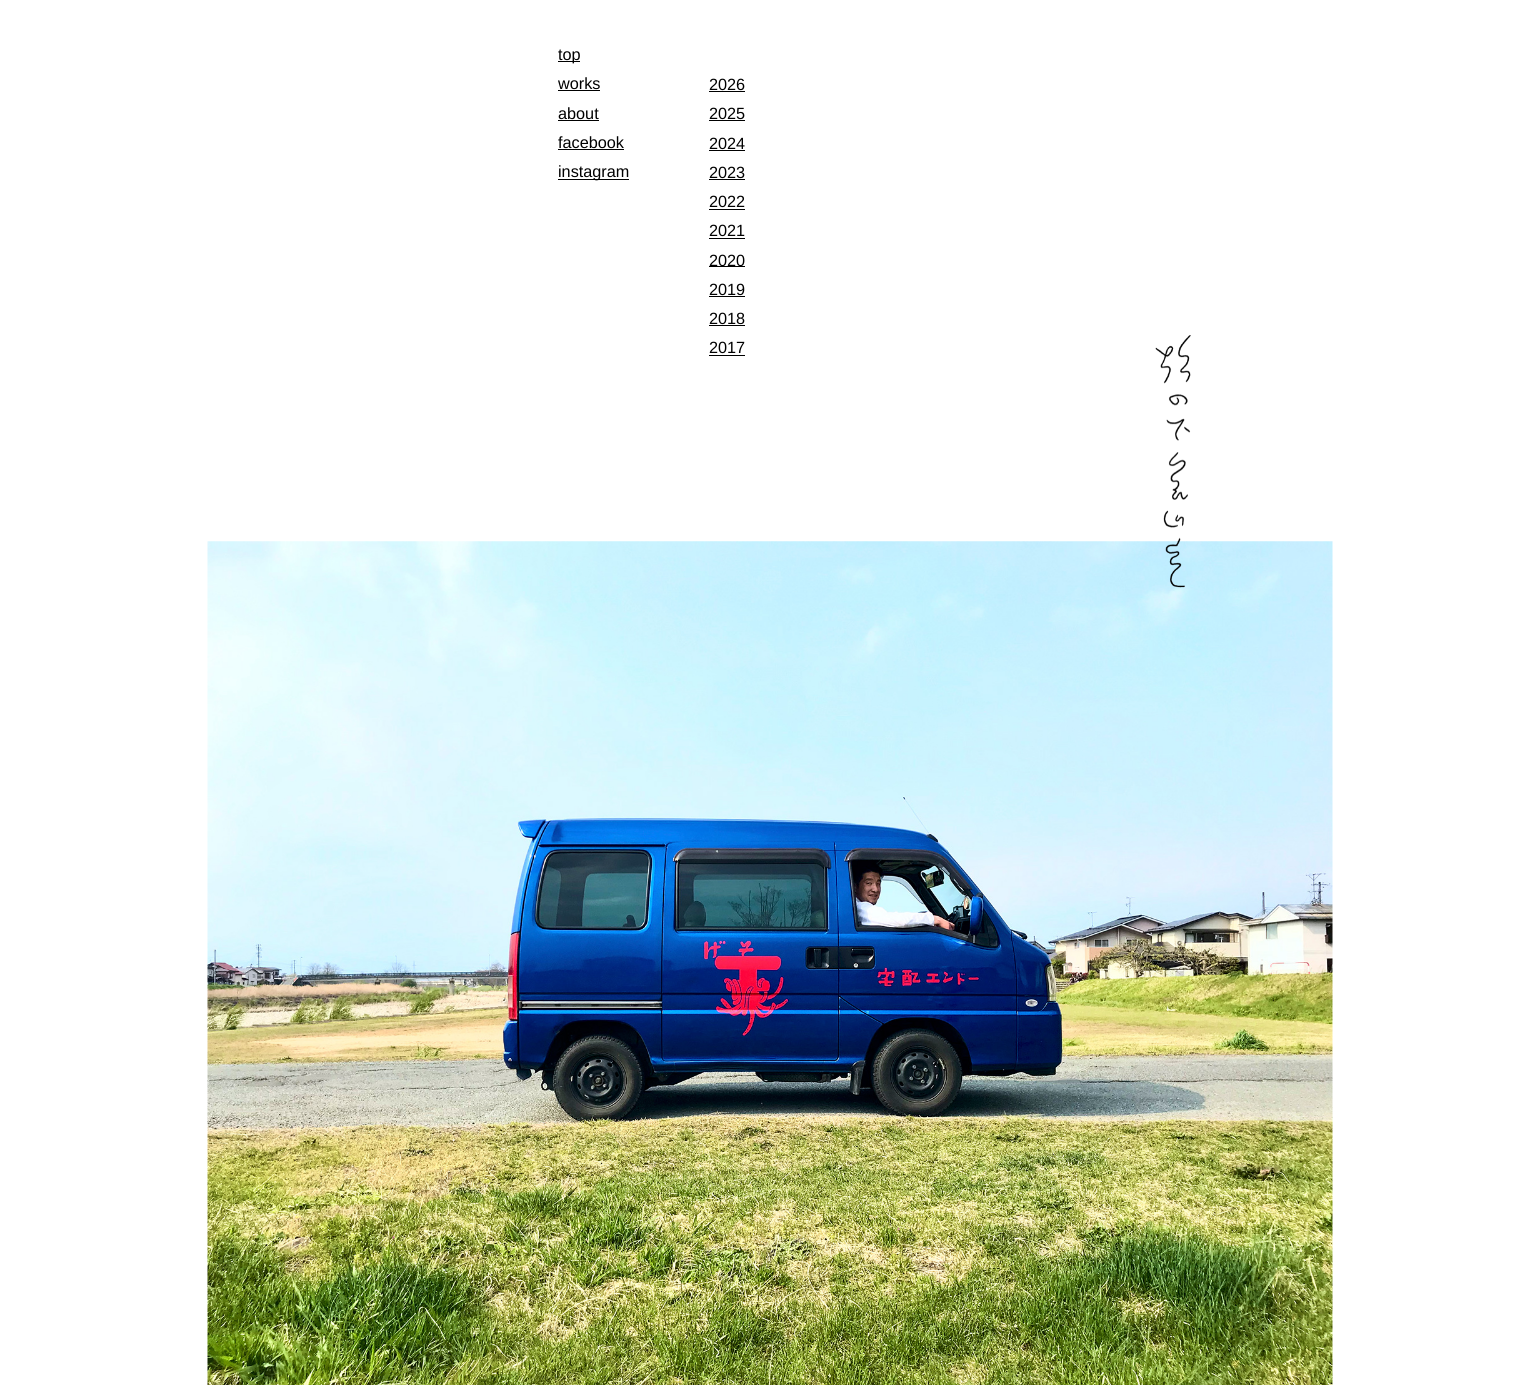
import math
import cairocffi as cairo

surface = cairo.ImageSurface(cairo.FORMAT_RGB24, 1539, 1397)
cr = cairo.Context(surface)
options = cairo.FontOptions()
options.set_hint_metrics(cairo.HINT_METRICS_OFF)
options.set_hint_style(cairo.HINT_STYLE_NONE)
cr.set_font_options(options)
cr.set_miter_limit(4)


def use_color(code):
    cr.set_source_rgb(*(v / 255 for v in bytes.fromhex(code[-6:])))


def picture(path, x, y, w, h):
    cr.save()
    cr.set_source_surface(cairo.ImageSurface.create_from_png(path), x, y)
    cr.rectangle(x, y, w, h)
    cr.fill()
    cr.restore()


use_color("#ffffff")
cr.paint()
use_color("#000000")
cr.rectangle(558, 61, 22, 1)
cr.fill()
cr.select_font_face("Liberation Sans")
cr.set_font_size(16.25)
cr.move_to(558, 60)
cr.show_text("top")
cr.move_to(558, 89)
cr.show_text("works")
cr.rectangle(558, 90, 42, 1)
cr.fill()
cr.move_to(558, 119)
cr.show_text("about")
cr.rectangle(558, 120, 41, 1)
cr.fill()
cr.move_to(558, 148)
cr.show_text("facebook")
cr.rectangle(558, 149, 66, 1)
cr.fill()
cr.rectangle(558, 179, 71, 1)
cr.fill()
cr.move_to(558, 177)
cr.show_text("instagram")
cr.move_to(709, 90)
cr.show_text("2026")
cr.rectangle(709, 91, 36, 1)
cr.fill()
cr.move_to(709, 119)
cr.show_text("2025")
cr.rectangle(709, 120, 36, 1)
cr.fill()
cr.move_to(709, 149)
cr.show_text("2024")
cr.rectangle(709, 150, 36, 1)
cr.fill()
cr.move_to(709, 178)
cr.show_text("2023")
cr.rectangle(709, 179, 36, 1)
cr.fill()
cr.move_to(709, 207)
cr.show_text("2022")
cr.rectangle(709, 209, 36, 1)
cr.fill()
cr.move_to(709, 236)
cr.show_text("2021")
cr.rectangle(709, 238, 36, 1)
cr.fill()
cr.rectangle(709, 266, 36, 1)
cr.fill()
cr.move_to(709, 266)
cr.show_text("2020")
cr.move_to(709, 295)
cr.show_text("2019")
cr.rectangle(709, 296, 36, 1)
cr.fill()
cr.move_to(709, 324)
cr.show_text("2018")
cr.rectangle(709, 325, 36, 1)
cr.fill()
cr.move_to(709, 353)
cr.show_text("2017")
cr.rectangle(709, 355, 36, 1)
cr.fill()
picture("img2.png", 207, 541, 1126, 844)
picture("img1.png", 1155, 335, 36, 253)
surface.write_to_png("result.png")
